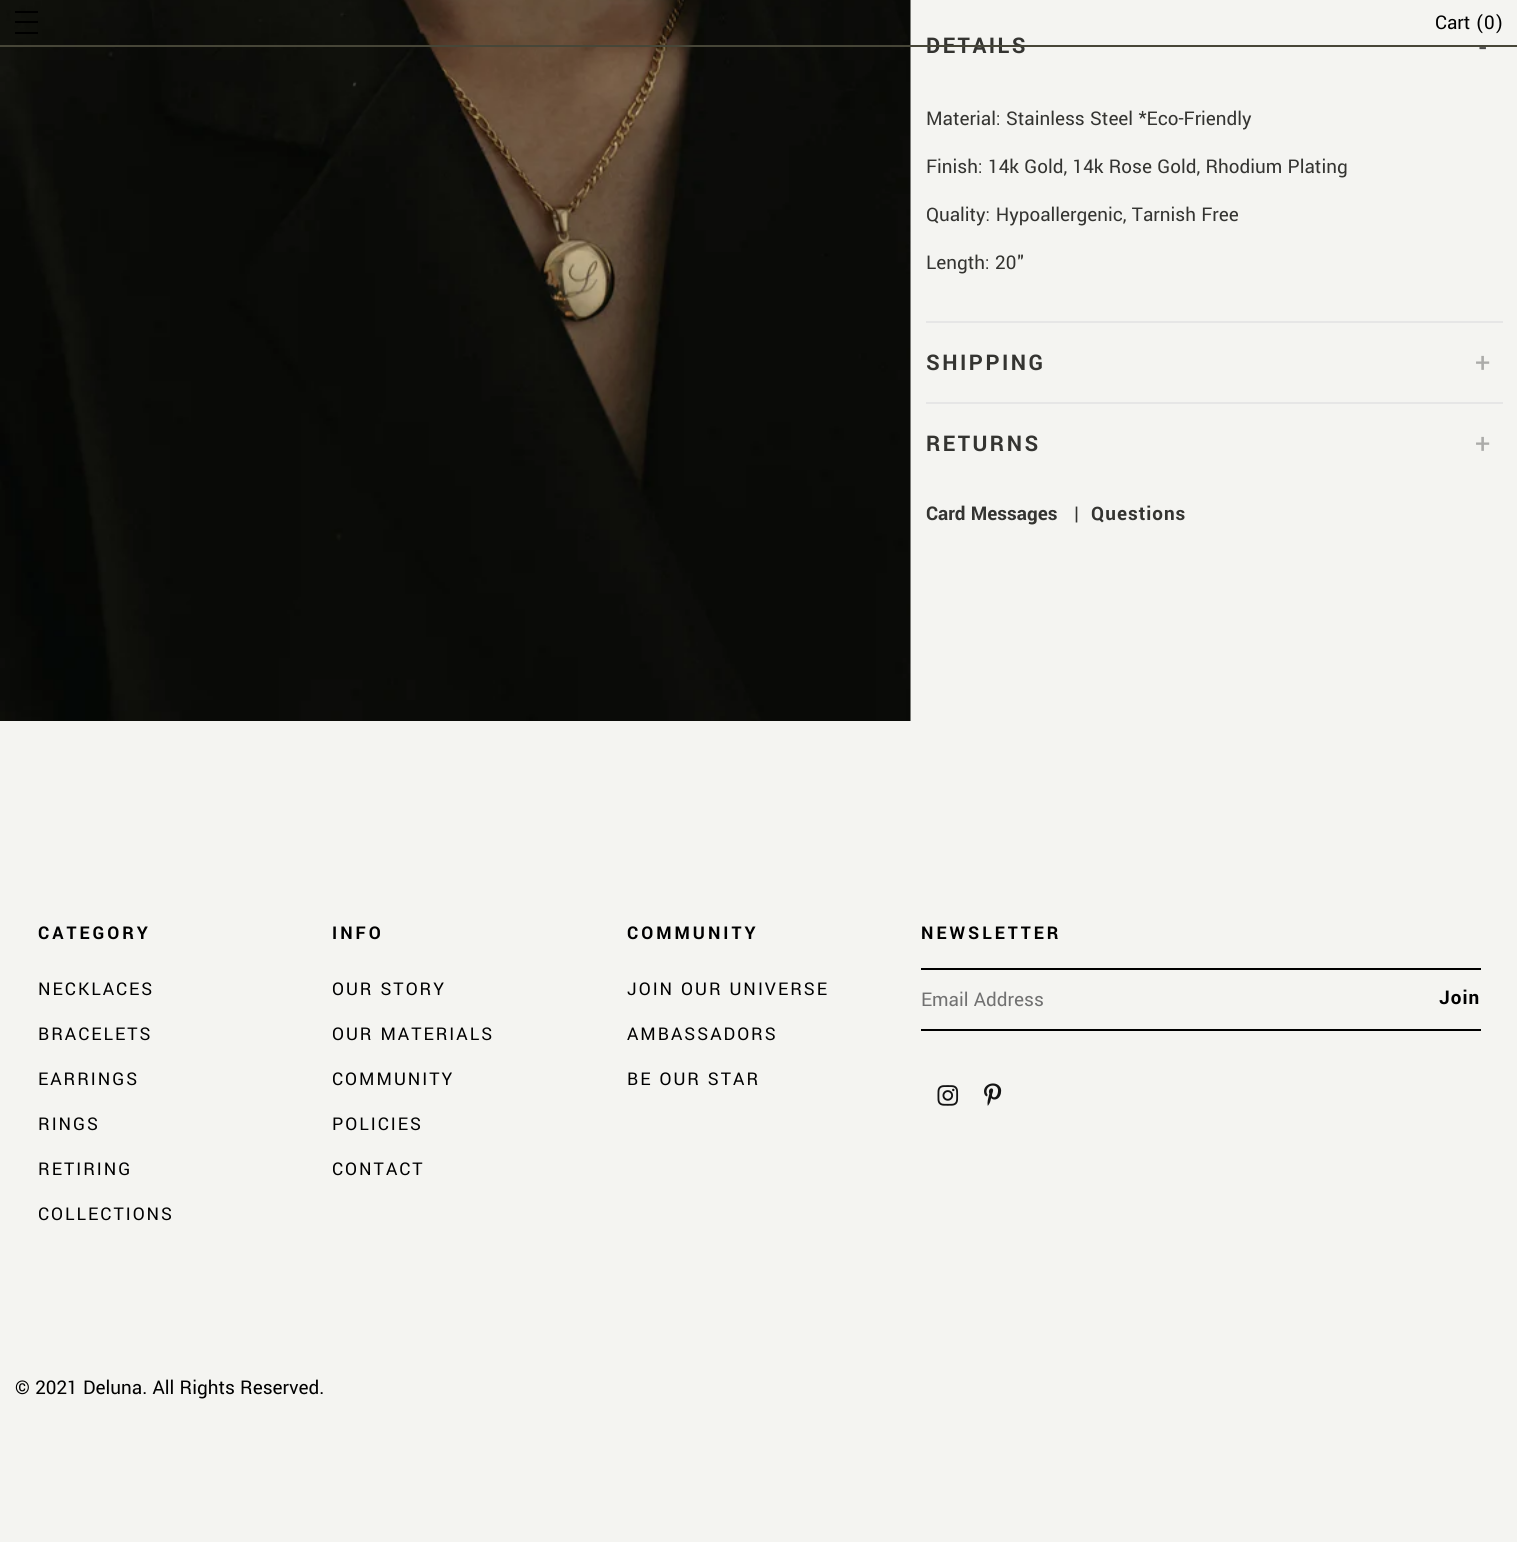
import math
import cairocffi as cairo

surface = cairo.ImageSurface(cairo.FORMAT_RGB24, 1517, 1542)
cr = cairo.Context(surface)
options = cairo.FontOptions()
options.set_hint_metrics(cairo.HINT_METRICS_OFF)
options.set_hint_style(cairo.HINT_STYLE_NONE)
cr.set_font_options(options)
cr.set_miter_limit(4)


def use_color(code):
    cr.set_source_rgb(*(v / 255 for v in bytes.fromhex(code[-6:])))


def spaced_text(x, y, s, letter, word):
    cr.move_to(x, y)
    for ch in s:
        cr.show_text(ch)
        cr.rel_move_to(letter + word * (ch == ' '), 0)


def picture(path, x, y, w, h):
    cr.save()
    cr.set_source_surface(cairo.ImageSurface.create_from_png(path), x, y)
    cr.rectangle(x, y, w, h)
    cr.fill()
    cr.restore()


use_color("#f4f4f1")
cr.paint()
picture("img1.png", 0, 0, 911, 721)
cr.select_font_face("Yantramanav", cairo.FONT_SLANT_NORMAL, cairo.FONT_WEIGHT_BOLD)
cr.set_font_size(24)
use_color("#343431")
spaced_text(926, 53, "DETAILS", 2.5, 0)
use_color("#474638")
cr.rectangle(0, 45, 1517, 2)
cr.fill()
use_color("#000000")
cr.rectangle(15, 11, 23, 2)
cr.fill()
cr.rectangle(15, 21, 23, 2)
cr.fill()
cr.rectangle(15, 32, 23, 2)
cr.fill()
cr.select_font_face("Yantramanav")
cr.set_font_size(21)
cr.move_to(1435, 29)
cr.show_text("Cart (0)")
cr.set_font_size(30)
use_color("#494948")
spaced_text(1479, 57, "-", 2.5, 0)
cr.set_font_size(21)
use_color("#343431")
cr.move_to(926, 125)
cr.show_text("Material: Stainless Steel *Eco-Friendly")
cr.move_to(926, 173)
cr.show_text("Finish: 14k Gold, 14k Rose Gold, Rhodium Plating")
cr.move_to(926, 221)
cr.show_text("Quality: Hypoallergenic, Tarnish Free")
cr.move_to(926, 269)
cr.show_text("Length: 20\"")
use_color("#e6e6e6")
cr.rectangle(926, 321, 577, 2)
cr.fill()
cr.select_font_face("Yantramanav", cairo.FONT_SLANT_NORMAL, cairo.FONT_WEIGHT_BOLD)
cr.set_font_size(24)
use_color("#343431")
spaced_text(926, 370, "SHIPPING", 2.5, 0)
cr.select_font_face("Yantramanav")
cr.set_font_size(30)
use_color("#ababa9")
spaced_text(1475, 372, "+", 2.5, 0)
use_color("#e6e6e6")
cr.rectangle(926, 402, 577, 2)
cr.fill()
cr.select_font_face("Yantramanav", cairo.FONT_SLANT_NORMAL, cairo.FONT_WEIGHT_BOLD)
cr.set_font_size(24)
use_color("#343431")
spaced_text(926, 451, "RETURNS", 2.5, 0)
cr.select_font_face("Yantramanav")
cr.set_font_size(30)
use_color("#ababa9")
spaced_text(1475, 453, "+", 2.5, 0)
cr.select_font_face("Yantramanav", cairo.FONT_SLANT_NORMAL, cairo.FONT_WEIGHT_BOLD)
cr.set_font_size(21)
use_color("#343431")
cr.move_to(926, 520)
cr.show_text("Card Messages")
cr.move_to(1073, 520)
cr.show_text("|")
spaced_text(1091, 520, "Questions", 1, 0)
cr.set_font_size(19.5)
use_color("#000000")
spaced_text(38, 939, "CATEGORY", 3, 0)
cr.select_font_face("Yantramanav")
spaced_text(38, 995, "NECKLACES", 2, 0)
spaced_text(38, 1040, "BRACELETS", 2, 0)
spaced_text(38, 1085, "EARRINGS", 2, 0)
spaced_text(38, 1130, "RINGS", 2, 0)
spaced_text(38, 1175, "RETIRING", 2, 0)
spaced_text(38, 1220, "COLLECTIONS", 2, 0)
cr.select_font_face("Yantramanav", cairo.FONT_SLANT_NORMAL, cairo.FONT_WEIGHT_BOLD)
spaced_text(332, 939, "INFO", 3, 0)
cr.select_font_face("Yantramanav")
spaced_text(332, 995, "OUR STORY", 2, 0)
spaced_text(332, 1040, "OUR MATERIALS", 2, 0)
spaced_text(332, 1085, "COMMUNITY", 2, 0)
spaced_text(332, 1130, "POLICIES", 2, 0)
spaced_text(332, 1175, "CONTACT", 2, 0)
cr.select_font_face("Yantramanav", cairo.FONT_SLANT_NORMAL, cairo.FONT_WEIGHT_BOLD)
spaced_text(627, 939, "COMMUNITY", 3, 0)
cr.select_font_face("Yantramanav")
spaced_text(627, 995, "JOIN OUR UNIVERSE", 2, 0)
spaced_text(627, 1040, "AMBASSADORS", 2, 0)
spaced_text(627, 1085, "BE OUR STAR", 2, 0)
cr.rectangle(921, 968, 560, 2)
cr.fill()
cr.select_font_face("Yantramanav", cairo.FONT_SLANT_NORMAL, cairo.FONT_WEIGHT_BOLD)
spaced_text(921, 939, "NEWSLETTER", 3, 0)
cr.rectangle(921, 1029, 560, 2)
cr.fill()
cr.select_font_face("Yantramanav")
cr.set_font_size(21)
use_color("#717171")
cr.move_to(921, 1006)
cr.show_text("Email Address")
cr.select_font_face("Yantramanav", cairo.FONT_SLANT_NORMAL, cairo.FONT_WEIGHT_BOLD)
use_color("#000000")
spaced_text(1439, 1004, "Join", 1, 0)
picture("img2.png", 937, 1085, 22, 21)
picture("img3.png", 984, 1083, 18, 23)
cr.select_font_face("Yantramanav")
cr.move_to(15, 1394)
cr.show_text("© 2021 Deluna. All Rights Reserved.")
surface.write_to_png("result.png")
